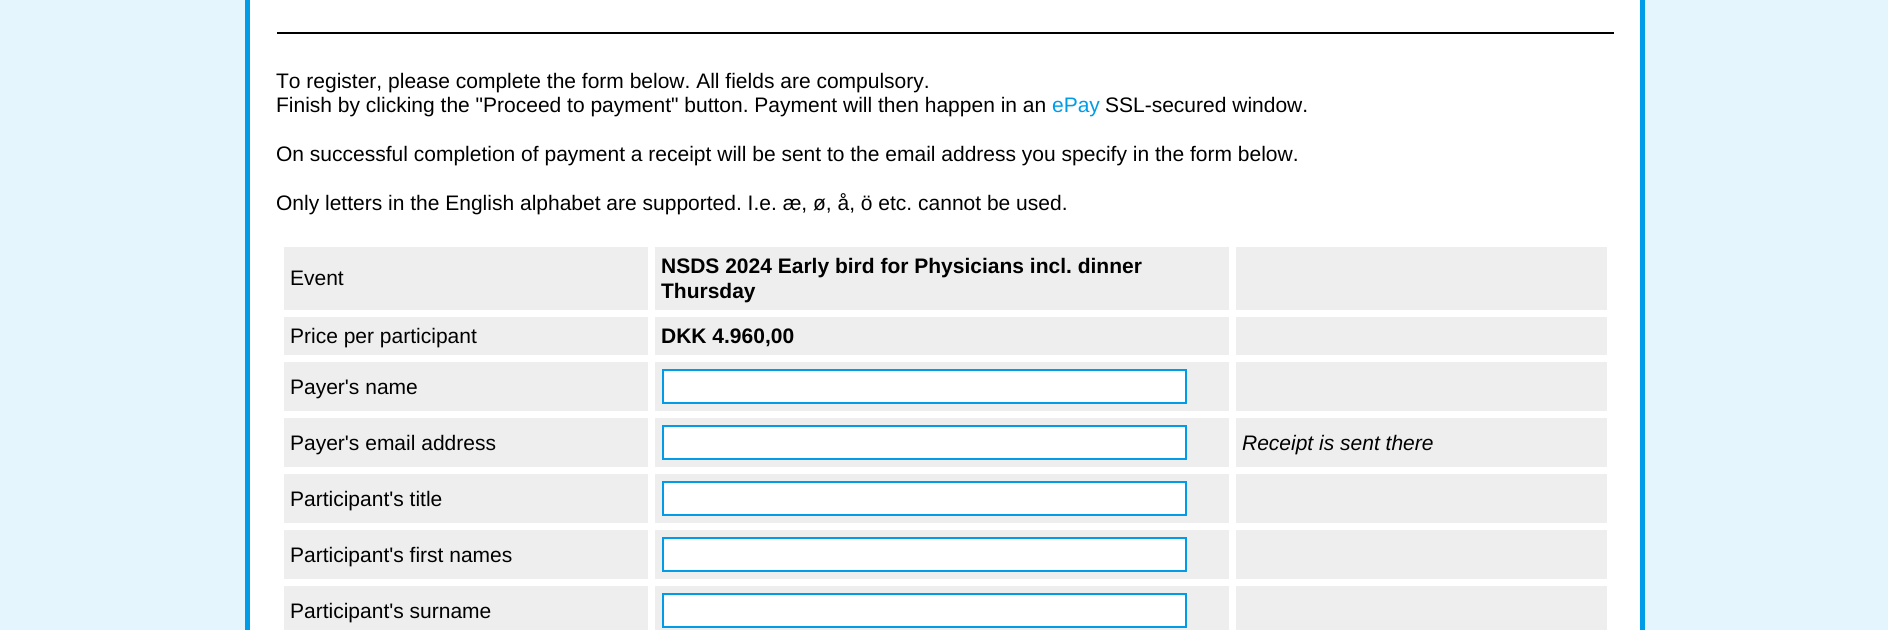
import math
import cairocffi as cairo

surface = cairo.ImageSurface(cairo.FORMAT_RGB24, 1888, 630)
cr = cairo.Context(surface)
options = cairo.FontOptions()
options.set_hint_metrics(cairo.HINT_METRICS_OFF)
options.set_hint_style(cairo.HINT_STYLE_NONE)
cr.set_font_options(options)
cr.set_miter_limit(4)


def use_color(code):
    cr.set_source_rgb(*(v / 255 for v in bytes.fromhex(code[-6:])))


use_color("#e5f5fd")
cr.paint()
use_color("#ffffff")
cr.rectangle(247.5, -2.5, 1395, 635)
cr.fill_preserve()
use_color("#009ce8")
cr.set_line_width(5)
cr.stroke()
use_color("#000000")
cr.rectangle(277, 32, 1337, 2)
cr.fill()
cr.select_font_face("Liberation Sans")
cr.set_font_size(21)
cr.move_to(276, 88)
cr.show_text("To register, please complete the form below. All fields are compulsory.")
cr.move_to(276, 112)
cr.show_text("Finish by clicking the \"Proceed to payment\" button. Payment will then happen in an")
use_color("#009ce8")
cr.move_to(1052, 112)
cr.show_text("ePay")
use_color("#000000")
cr.move_to(1105, 112)
cr.show_text("SSL-secured window.")
cr.move_to(276, 161)
cr.show_text("On successful completion of payment a receipt will be sent to the email address you specify in the form below.")
cr.move_to(276, 210)
cr.show_text("Only letters in the English alphabet are supported. I.e. æ, ø, å, ö etc. cannot be used.")
use_color("#eeeeee")
cr.rectangle(284, 247, 364, 63)
cr.fill()
use_color("#000000")
cr.move_to(290, 285)
cr.show_text("Event")
use_color("#eeeeee")
cr.rectangle(655, 247, 574, 63)
cr.fill()
cr.select_font_face("Liberation Sans", cairo.FONT_SLANT_NORMAL, cairo.FONT_WEIGHT_BOLD)
use_color("#000000")
cr.move_to(661, 273)
cr.show_text("NSDS 2024 Early bird for Physicians incl. dinner")
cr.move_to(661, 298)
cr.show_text("Thursday")
use_color("#eeeeee")
cr.rectangle(1236, 247, 371, 63)
cr.fill()
cr.rectangle(284, 317, 364, 38)
cr.fill()
cr.select_font_face("Liberation Sans")
use_color("#000000")
cr.move_to(290, 343)
cr.show_text("Price per participant")
use_color("#eeeeee")
cr.rectangle(655, 317, 574, 38)
cr.fill()
cr.select_font_face("Liberation Sans", cairo.FONT_SLANT_NORMAL, cairo.FONT_WEIGHT_BOLD)
use_color("#000000")
cr.move_to(661, 343)
cr.show_text("DKK 4.960,00")
use_color("#eeeeee")
cr.rectangle(1236, 317, 371, 38)
cr.fill()
cr.rectangle(284, 362, 364, 49)
cr.fill()
cr.select_font_face("Liberation Sans")
use_color("#000000")
cr.move_to(290, 394)
cr.show_text("Payer's name")
use_color("#eeeeee")
cr.rectangle(655, 362, 574, 49)
cr.fill()
use_color("#ffffff")
cr.rectangle(663, 370, 523, 33)
cr.fill_preserve()
use_color("#009ce8")
cr.set_line_width(2)
cr.stroke()
use_color("#eeeeee")
cr.rectangle(1236, 362, 371, 49)
cr.fill()
cr.rectangle(284, 418, 364, 49)
cr.fill()
use_color("#000000")
cr.move_to(290, 450)
cr.show_text("Payer's email address")
use_color("#eeeeee")
cr.rectangle(655, 418, 574, 49)
cr.fill()
use_color("#ffffff")
cr.rectangle(663, 426, 523, 33)
cr.fill_preserve()
use_color("#009ce8")
cr.stroke()
use_color("#eeeeee")
cr.rectangle(1236, 418, 371, 49)
cr.fill()
cr.select_font_face("Liberation Sans", cairo.FONT_SLANT_ITALIC)
use_color("#000000")
cr.move_to(1242, 450)
cr.show_text("Receipt is sent there")
use_color("#eeeeee")
cr.rectangle(284, 474, 364, 49)
cr.fill()
cr.select_font_face("Liberation Sans")
use_color("#000000")
cr.move_to(290, 506)
cr.show_text("Participant's title")
use_color("#eeeeee")
cr.rectangle(655, 474, 574, 49)
cr.fill()
use_color("#ffffff")
cr.rectangle(663, 482, 523, 33)
cr.fill_preserve()
use_color("#009ce8")
cr.stroke()
use_color("#eeeeee")
cr.rectangle(1236, 474, 371, 49)
cr.fill()
cr.rectangle(284, 530, 364, 49)
cr.fill()
use_color("#000000")
cr.move_to(290, 562)
cr.show_text("Participant's first names")
use_color("#eeeeee")
cr.rectangle(655, 530, 574, 49)
cr.fill()
use_color("#ffffff")
cr.rectangle(663, 538, 523, 33)
cr.fill_preserve()
use_color("#009ce8")
cr.stroke()
use_color("#eeeeee")
cr.rectangle(1236, 530, 371, 49)
cr.fill()
cr.rectangle(284, 586, 364, 44)
cr.fill()
use_color("#000000")
cr.move_to(290, 618)
cr.show_text("Participant's surname")
use_color("#eeeeee")
cr.rectangle(655, 586, 574, 44)
cr.fill()
use_color("#ffffff")
cr.rectangle(663, 594, 523, 33)
cr.fill_preserve()
use_color("#009ce8")
cr.stroke()
use_color("#eeeeee")
cr.rectangle(1236, 586, 371, 44)
cr.fill()
surface.write_to_png("result.png")
